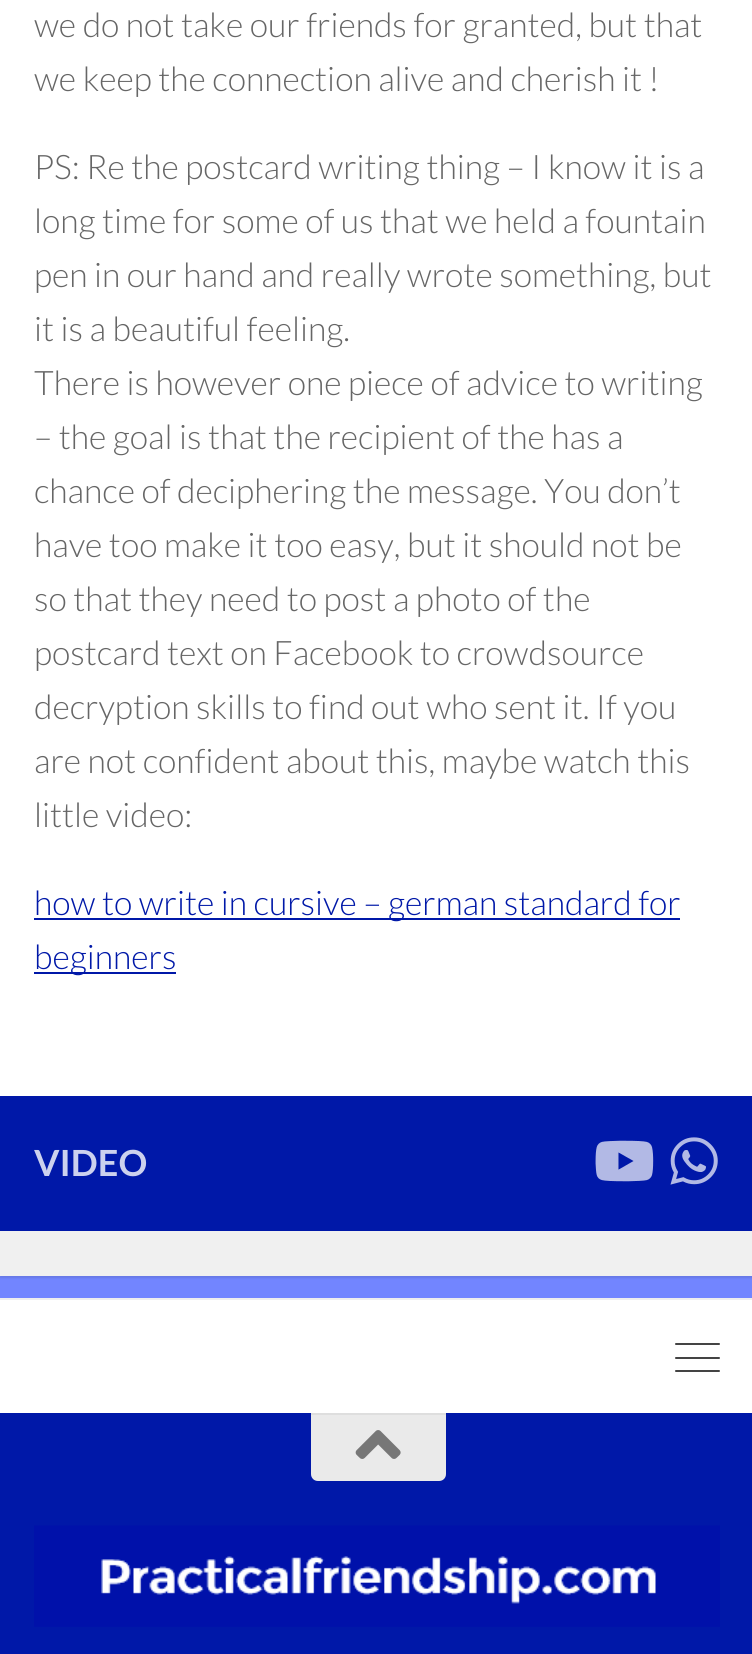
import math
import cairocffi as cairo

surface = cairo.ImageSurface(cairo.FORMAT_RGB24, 752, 1654)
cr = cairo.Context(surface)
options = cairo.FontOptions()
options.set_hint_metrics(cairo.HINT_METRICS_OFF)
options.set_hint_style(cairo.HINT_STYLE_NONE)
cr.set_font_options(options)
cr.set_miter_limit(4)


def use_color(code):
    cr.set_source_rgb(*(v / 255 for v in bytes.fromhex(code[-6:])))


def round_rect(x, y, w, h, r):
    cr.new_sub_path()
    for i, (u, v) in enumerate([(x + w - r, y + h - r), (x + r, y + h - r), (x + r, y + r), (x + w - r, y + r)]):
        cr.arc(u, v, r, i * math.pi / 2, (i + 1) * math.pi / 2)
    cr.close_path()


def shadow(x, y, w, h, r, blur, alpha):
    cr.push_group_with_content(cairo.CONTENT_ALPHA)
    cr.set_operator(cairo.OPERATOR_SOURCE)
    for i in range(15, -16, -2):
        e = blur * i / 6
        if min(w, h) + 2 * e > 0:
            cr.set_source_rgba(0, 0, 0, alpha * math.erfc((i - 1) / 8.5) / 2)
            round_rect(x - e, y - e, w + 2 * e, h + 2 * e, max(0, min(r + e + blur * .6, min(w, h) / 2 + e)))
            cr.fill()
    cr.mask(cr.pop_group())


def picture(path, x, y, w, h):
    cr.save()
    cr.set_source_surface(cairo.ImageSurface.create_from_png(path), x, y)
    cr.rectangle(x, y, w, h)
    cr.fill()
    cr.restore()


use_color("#7285ff")
cr.paint()
use_color("#000000")
shadow(0, -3, 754, 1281, 0, 1, 0.1)
use_color("#ffffff")
cr.rectangle(0, 0, 752, 1096)
cr.fill()
cr.select_font_face("Lato Light")
cr.set_font_size(33.75)
use_color("#666666")
cr.move_to(34, 37)
cr.show_text("we do not take our friends for granted, but that")
cr.move_to(34, 91)
cr.show_text("we keep the connection alive and cherish it !")
cr.move_to(34, 179)
cr.show_text("PS: Re the postcard writing thing – I know it is a")
cr.move_to(34, 233)
cr.show_text("long time for some of us that we held a fountain")
cr.move_to(34, 287)
cr.show_text("pen in our hand and really wrote something, but")
cr.move_to(34, 341)
cr.show_text("it is a beautiful feeling.")
cr.move_to(34, 395)
cr.show_text("There is however one piece of advice to writing")
cr.move_to(34, 449)
cr.show_text("– the goal is that the recipient of the has a")
cr.move_to(34, 503)
cr.show_text("chance of deciphering the message. You don’t")
cr.move_to(34, 557)
cr.show_text("have too make it too easy, but it should not be")
cr.move_to(34, 611)
cr.show_text("so that they need to post a photo of the")
cr.move_to(34, 665)
cr.show_text("postcard text on Facebook to crowdsource")
cr.move_to(34, 719)
cr.show_text("decryption skills to find out who sent it. If you")
cr.move_to(34, 773)
cr.show_text("are not confident about this, maybe watch this")
cr.move_to(34, 827)
cr.show_text("little video:")
use_color("#0018a8")
cr.rectangle(34, 918, 646, 2)
cr.fill()
cr.move_to(34, 915)
cr.show_text("how to write in cursive – german standard for")
cr.rectangle(34, 972, 142, 2)
cr.fill()
cr.move_to(34, 969)
cr.show_text("beginners")
use_color("#f0f0f0")
cr.rectangle(0, 1231, 752, 45)
cr.fill()
use_color("#0018a8")
cr.rectangle(0, 1096, 752, 135)
cr.fill()
cr.select_font_face("Lato", cairo.FONT_SLANT_NORMAL, cairo.FONT_WEIGHT_BOLD)
cr.set_font_size(36)
use_color("#ccd1ee")
cr.move_to(34, 1176)
cr.show_text("VIDEO")
picture("img1.png", 595, 1140, 59, 42)
picture("img2.png", 670, 1137, 48, 48)
use_color("#ffffff")
cr.rectangle(0, 1300, 752, 113)
cr.fill()
use_color("#eeeeee")
cr.rectangle(0, 1298, 752, 2)
cr.fill()
use_color("#444444")
round_rect(675, 1343, 45, 2, 1)
cr.fill()
round_rect(675, 1357, 45, 2, 1)
cr.fill()
round_rect(675, 1370, 45, 2, 1)
cr.fill()
use_color("#0018a8")
cr.rectangle(0, 1413, 752, 241)
cr.fill()
use_color("#eaeaea")
cr.new_path()
cr.move_to(311, 1413)
cr.line_to(446, 1413)
cr.line_to(446, 1474)
cr.curve_to(446, 1478, 443, 1481, 439, 1481)
cr.line_to(318, 1481)
cr.curve_to(314, 1481, 311, 1478, 311, 1474)
cr.close_path()
cr.fill()
use_color("#dedede")
cr.rectangle(311, 1413, 135, 2)
cr.fill()
picture("img3.png", 355, 1430, 46, 29)
picture("img4.png", 34, 1525, 686, 102)
surface.write_to_png("result.png")
